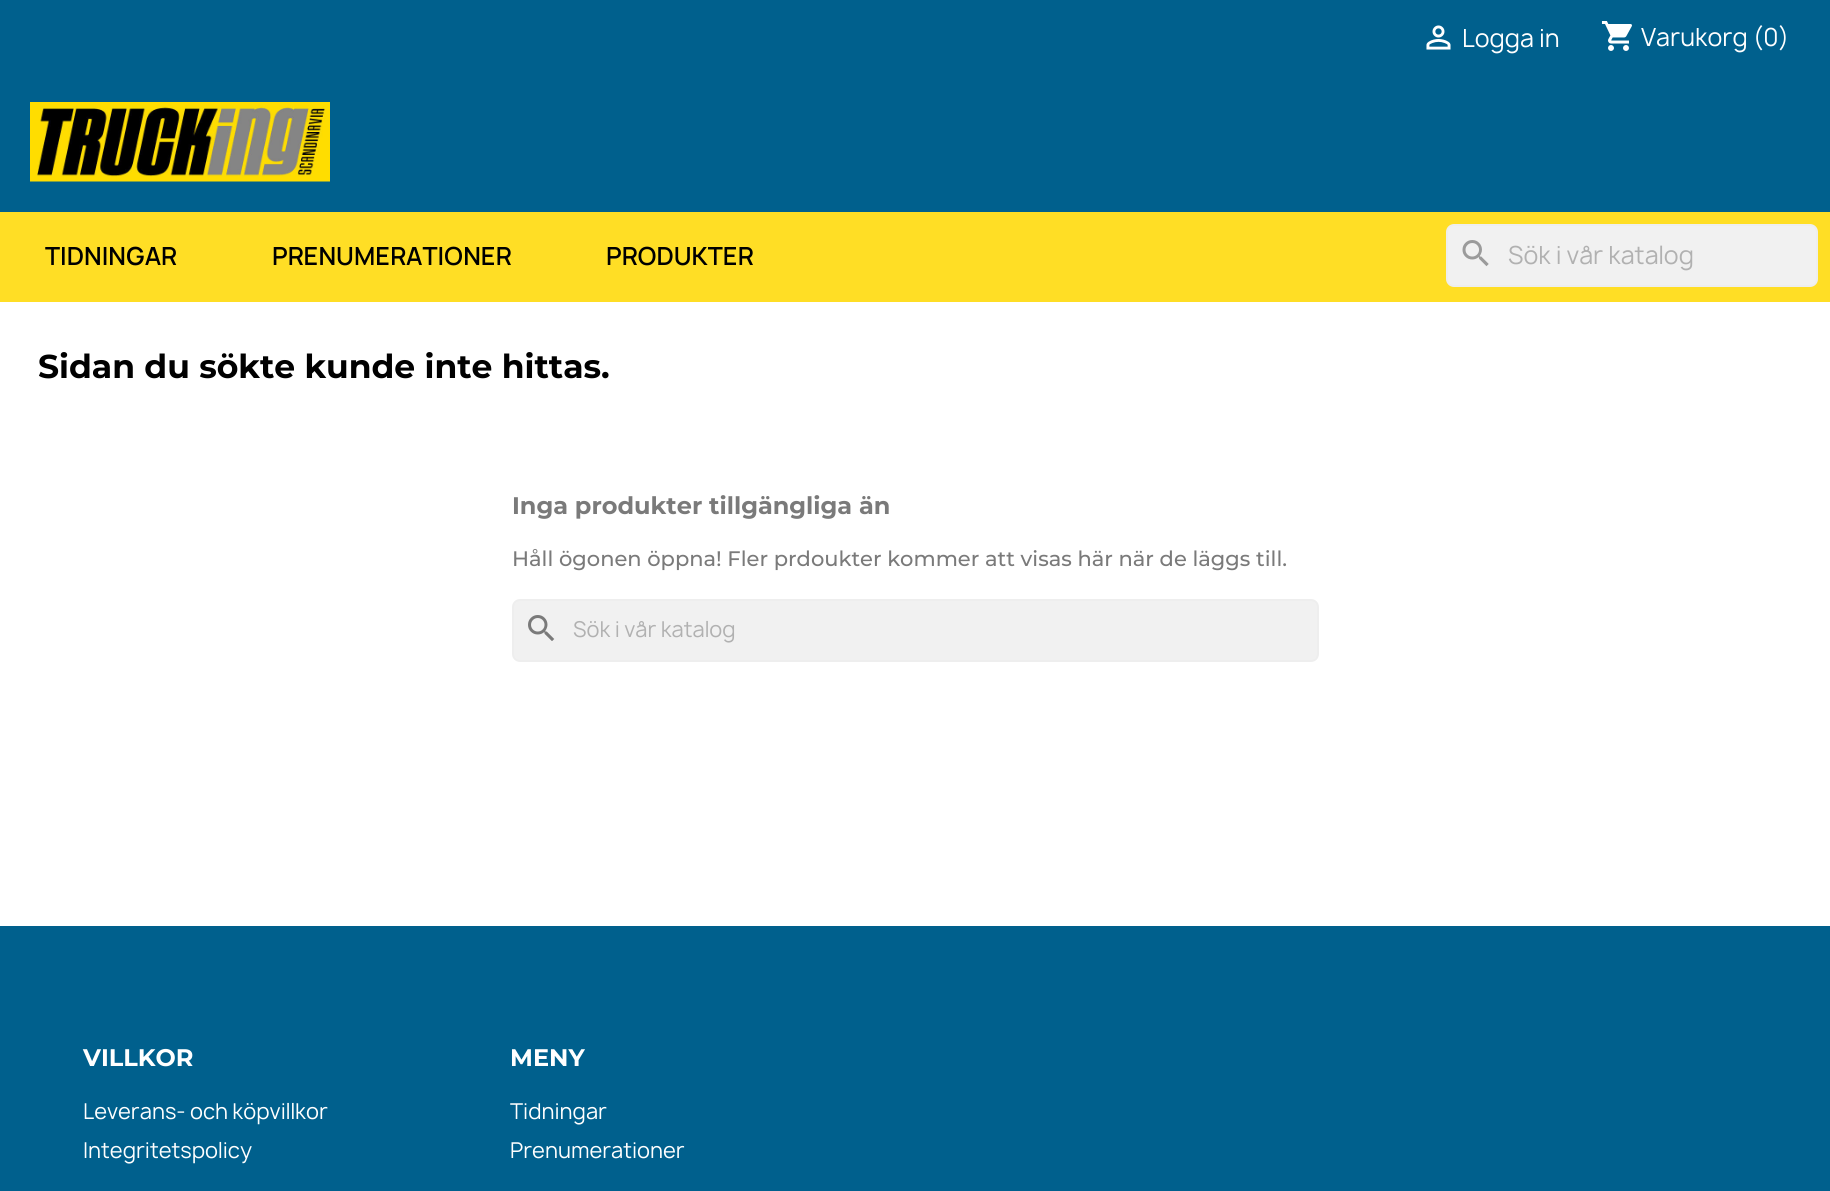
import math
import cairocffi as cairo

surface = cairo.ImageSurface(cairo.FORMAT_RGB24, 1830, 1191)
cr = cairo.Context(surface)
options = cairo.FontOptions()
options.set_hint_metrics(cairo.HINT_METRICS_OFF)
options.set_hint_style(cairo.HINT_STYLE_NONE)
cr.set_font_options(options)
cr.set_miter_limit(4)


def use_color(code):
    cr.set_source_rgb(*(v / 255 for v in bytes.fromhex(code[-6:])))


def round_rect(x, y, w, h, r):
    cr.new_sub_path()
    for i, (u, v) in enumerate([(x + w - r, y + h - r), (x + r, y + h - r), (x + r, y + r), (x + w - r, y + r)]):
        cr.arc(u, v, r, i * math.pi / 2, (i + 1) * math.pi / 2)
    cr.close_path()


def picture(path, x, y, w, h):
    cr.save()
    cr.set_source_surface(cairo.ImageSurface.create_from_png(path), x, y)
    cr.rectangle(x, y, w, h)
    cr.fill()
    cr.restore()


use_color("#ffffff")
cr.paint()
use_color("#00608d")
cr.rectangle(0, 0, 1830, 212)
cr.fill()
picture("img1.png", 1426, 25, 25, 25)
cr.select_font_face("Manrope")
cr.set_font_size(24)
use_color("#ffffff")
cr.move_to(1462, 47)
cr.show_text("Logga in")
picture("img2.png", 1601, 21, 31, 30)
cr.move_to(1641, 46)
cr.show_text("Varukorg (0)")
picture("img3.png", 30, 102, 300, 80)
use_color("#ffde25")
cr.rectangle(0, 212, 1830, 90)
cr.fill()
cr.select_font_face("Manrope SemiBold")
use_color("#000000")
cr.move_to(45, 265)
cr.show_text("TIDNINGAR")
cr.move_to(272, 265)
cr.show_text("PRENUMERATIONER")
cr.move_to(606, 265)
cr.show_text("PRODUKTER")
use_color("#f1f1f1")
round_rect(1447, 225, 370, 61, 7)
cr.fill_preserve()
use_color("#eeeeee")
cr.stroke()
picture("img4.png", 1462, 240, 27, 27)
cr.select_font_face("Manrope")
use_color("#b1b1b1")
cr.move_to(1508, 264)
cr.show_text("Sök i vår katalog")
cr.select_font_face("Montserrat", cairo.FONT_SLANT_NORMAL, cairo.FONT_WEIGHT_BOLD)
cr.set_font_size(33)
use_color("#000000")
cr.move_to(38, 378)
cr.show_text("Sidan du sökte kunde inte hittas.")
cr.set_font_size(24)
use_color("#7a7a7a")
cr.move_to(512, 514)
cr.show_text("Inga produkter tillgängliga än")
cr.select_font_face("Montserrat Medium")
cr.set_font_size(21)
cr.move_to(512, 566)
cr.show_text("Håll ögonen öppna! Fler prdoukter kommer att visas här när de läggs till.")
use_color("#f1f1f1")
round_rect(513, 600, 805, 61, 7)
cr.fill_preserve()
use_color("#eeeeee")
cr.stroke()
picture("img5.png", 528, 615, 27, 26)
cr.select_font_face("Manrope")
use_color("#b1b1b1")
cr.move_to(573, 637)
cr.show_text("Sök i vår katalog")
use_color("#00608d")
cr.rectangle(0, 926, 1830, 265)
cr.fill()
cr.select_font_face("Montserrat", cairo.FONT_SLANT_NORMAL, cairo.FONT_WEIGHT_BOLD)
cr.set_font_size(24)
use_color("#ffffff")
cr.move_to(83, 1066)
cr.show_text("VILLKOR")
cr.select_font_face("Manrope")
cr.set_font_size(21)
cr.move_to(83, 1119)
cr.show_text("Leverans- och köpvillkor")
cr.move_to(83, 1158)
cr.show_text("Integritetspolicy")
cr.select_font_face("Montserrat", cairo.FONT_SLANT_NORMAL, cairo.FONT_WEIGHT_BOLD)
cr.set_font_size(24)
cr.move_to(510, 1066)
cr.show_text("MENY")
cr.select_font_face("Manrope")
cr.set_font_size(21)
cr.move_to(510, 1119)
cr.show_text("Tidningar")
cr.move_to(510, 1158)
cr.show_text("Prenumerationer")
surface.write_to_png("result.png")
